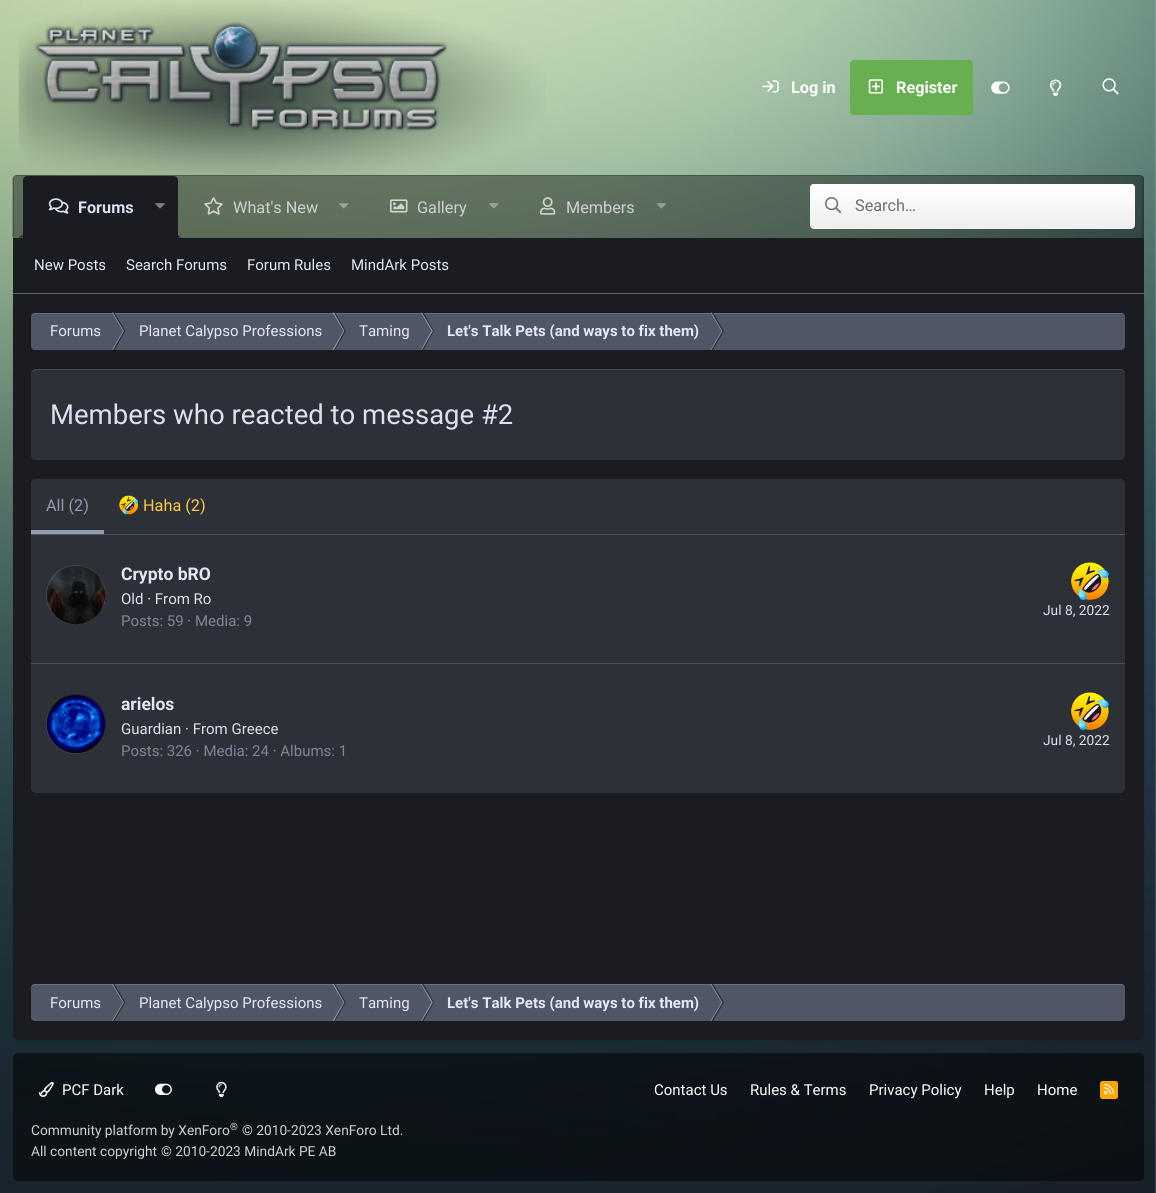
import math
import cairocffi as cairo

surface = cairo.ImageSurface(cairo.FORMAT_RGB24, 1156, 1193)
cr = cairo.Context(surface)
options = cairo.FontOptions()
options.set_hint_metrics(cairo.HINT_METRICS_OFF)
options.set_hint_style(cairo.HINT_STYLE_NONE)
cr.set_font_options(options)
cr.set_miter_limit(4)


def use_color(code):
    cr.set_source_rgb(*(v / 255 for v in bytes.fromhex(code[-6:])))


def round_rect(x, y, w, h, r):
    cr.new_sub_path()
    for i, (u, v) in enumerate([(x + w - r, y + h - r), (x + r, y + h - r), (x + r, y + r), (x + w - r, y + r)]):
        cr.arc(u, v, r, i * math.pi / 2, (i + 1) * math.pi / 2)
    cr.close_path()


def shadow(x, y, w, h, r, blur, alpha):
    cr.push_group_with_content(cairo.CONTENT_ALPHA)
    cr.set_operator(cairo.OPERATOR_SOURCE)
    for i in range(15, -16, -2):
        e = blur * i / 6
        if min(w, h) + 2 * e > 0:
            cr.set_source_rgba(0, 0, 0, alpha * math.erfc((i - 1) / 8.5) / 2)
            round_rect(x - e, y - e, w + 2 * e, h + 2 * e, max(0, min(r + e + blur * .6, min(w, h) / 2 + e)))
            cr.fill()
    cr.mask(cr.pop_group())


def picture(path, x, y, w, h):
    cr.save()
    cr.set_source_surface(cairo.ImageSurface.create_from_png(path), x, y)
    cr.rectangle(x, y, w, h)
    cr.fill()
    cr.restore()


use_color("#ffffff")
cr.paint()
picture("img1.png", 0, 0, 1156, 1193)
picture("img2.png", 18, 2, 527, 173)
picture("img3.png", 762, 80, 17, 13)
cr.select_font_face("Roboto", cairo.FONT_SLANT_NORMAL, cairo.FONT_WEIGHT_BOLD)
cr.set_font_size(16.25)
use_color("#ffffff")
cr.move_to(791, 93)
cr.show_text("Log in")
use_color("#67af51")
round_rect(850, 60, 123, 55, 4)
cr.fill()
picture("img4.png", 868, 79, 15, 15)
use_color("#ffffff")
cr.move_to(896, 93)
cr.show_text("Register")
picture("img5.png", 991, 81, 19, 13)
picture("img6.png", 1050, 79, 12, 17)
picture("img7.png", 1102, 78, 17, 17)
cr.set_source_rgba(0, 0, 0, 0.4)
cr.new_path()
cr.move_to(17, 175)
cr.line_to(1140, 175)
cr.curve_to(1142, 175, 1144, 177, 1144, 179)
cr.line_to(1144, 238)
cr.line_to(13, 238)
cr.line_to(13, 179)
cr.curve_to(13, 177, 15, 175, 17, 175)
cr.close_path()
cr.fill()
cr.set_source_rgba(0, 0, 0, 0.2)
cr.set_fill_rule(cairo.FILL_RULE_EVEN_ODD)
cr.new_path()
cr.move_to(16, 175)
cr.line_to(1140, 175)
cr.curve_to(1142, 175, 1144, 177, 1144, 179)
cr.line_to(1144, 238)
cr.line_to(12, 238)
cr.line_to(12, 179)
cr.curve_to(12, 177, 14, 175, 16, 175)
cr.close_path()
cr.move_to(16, 176)
cr.line_to(1140, 176)
cr.curve_to(1141, 176, 1142, 177, 1142, 179)
cr.line_to(1142, 238)
cr.line_to(14, 238)
cr.line_to(14, 179)
cr.curve_to(14, 177, 15, 176, 16, 176)
cr.close_path()
cr.fill()
use_color("#1b1c21")
cr.new_path()
cr.move_to(27, 176)
cr.line_to(174, 176)
cr.curve_to(176, 176, 178, 178, 178, 180)
cr.line_to(178, 238)
cr.line_to(23, 238)
cr.line_to(23, 180)
cr.curve_to(23, 178, 25, 176, 27, 176)
cr.close_path()
cr.fill()
picture("img8.png", 48, 198, 21, 16)
use_color("#dae1f3")
cr.move_to(78, 213)
cr.show_text("Forums")
picture("img9.png", 155, 203, 10, 6)
picture("img10.png", 19, 233, 4, 5)
picture("img11.png", 178, 235, 4, 3)
picture("img12.png", 204, 197, 19, 18)
cr.select_font_face("Roboto")
use_color("#cfd0d1")
cr.move_to(233, 213)
cr.show_text("What's New")
picture("img13.png", 339, 203, 10, 6)
picture("img14.png", 390, 199, 18, 14)
cr.move_to(417, 213)
cr.show_text("Gallery")
picture("img15.png", 489, 203, 10, 6)
picture("img16.png", 540, 197, 16, 18)
cr.move_to(566, 213)
cr.show_text("Members")
picture("img17.png", 656, 203, 10, 6)
use_color("#eeeeee")
round_rect(810, 184, 325, 45, 4)
cr.fill()
gradient = cairo.LinearGradient(973, 184, 973, 229)
gradient.add_color_stop_rgba(0, 1, 1, 1, 1)
gradient.add_color_stop_rgba(1, 1, 1, 1, 0)
cr.set_source(gradient)
round_rect(810, 184, 325, 45, 4)
cr.fill()
picture("img18.png", 825, 197, 17, 17)
use_color("#6e6e6e")
cr.move_to(855, 211)
cr.show_text("Search…")
use_color("#1b1c21")
cr.rectangle(13, 238, 1131, 55)
cr.fill()
use_color("#5b616f")
cr.rectangle(13, 293, 1131, 1)
cr.fill()
cr.set_font_size(15)
use_color("#e1e8f8")
cr.move_to(34, 270)
cr.show_text("New Posts")
cr.move_to(126, 270)
cr.show_text("Search Forums")
cr.move_to(247, 270)
cr.show_text("Forum Rules")
cr.move_to(351, 270)
cr.show_text("MindArk Posts")
use_color("#000000")
shadow(13, 295, 1131, 746, 5, 2, 0.08)
use_color("#1b1c21")
cr.new_path()
cr.move_to(13, 294)
cr.line_to(1144, 294)
cr.line_to(1144, 1035)
cr.curve_to(1144, 1038, 1142, 1040, 1139, 1040)
cr.line_to(18, 1040)
cr.curve_to(15, 1040, 13, 1038, 13, 1035)
cr.close_path()
cr.fill()
use_color("#4f5766")
round_rect(31, 313, 1094, 37, 4)
cr.fill()
cr.set_source_rgba(1, 1, 1, 0.15)
cr.set_fill_rule(cairo.FILL_RULE_WINDING)
cr.new_path()
cr.move_to(35, 314)
cr.line_to(1121, 314)
cr.curve_to(1123, 314, 1125, 315, 1125, 318)
cr.curve_to(1125, 315, 1124, 313, 1121, 313)
cr.line_to(35, 313)
cr.curve_to(32, 313, 31, 315, 31, 318)
cr.curve_to(31, 315, 33, 314, 35, 314)
cr.close_path()
cr.fill()
use_color("#e1e8f8")
cr.move_to(50, 336)
cr.show_text("Forums")
cr.set_source_rgba(1, 1, 1, 0.38)
cr.new_path()
cr.move_to(112, 312.5)
cr.line_to(113, 312.5)
cr.line_to(124, 331)
cr.line_to(123, 331)
cr.close_path()
cr.fill()
cr.set_source_rgba(0.133, 0.149, 0.176, 0.8)
cr.new_path()
cr.move_to(113, 312.5)
cr.line_to(114.5, 312.5)
cr.line_to(125.5, 331)
cr.line_to(124, 331)
cr.close_path()
cr.fill()
use_color("#9297a0")
cr.new_path()
cr.move_to(123, 331)
cr.line_to(124, 331)
cr.line_to(113, 350)
cr.line_to(112, 350)
cr.close_path()
cr.fill()
cr.set_source_rgba(0.133, 0.149, 0.176, 0.8)
cr.new_path()
cr.move_to(124, 331)
cr.line_to(125.5, 331)
cr.line_to(114.5, 350)
cr.line_to(113, 350)
cr.close_path()
cr.fill()
use_color("#e1e8f8")
cr.move_to(139, 336)
cr.show_text("Planet Calypso Professions")
cr.set_source_rgba(1, 1, 1, 0.38)
cr.new_path()
cr.move_to(332.5, 312.5)
cr.line_to(334, 312.5)
cr.line_to(344.5, 331)
cr.line_to(343.5, 331)
cr.close_path()
cr.fill()
cr.set_source_rgba(0.133, 0.149, 0.176, 0.8)
cr.new_path()
cr.move_to(334, 312.5)
cr.line_to(335, 312.5)
cr.line_to(346, 331)
cr.line_to(344.5, 331)
cr.close_path()
cr.fill()
use_color("#9297a0")
cr.new_path()
cr.move_to(343.5, 331)
cr.line_to(344.5, 331)
cr.line_to(334, 350)
cr.line_to(332.5, 350)
cr.close_path()
cr.fill()
cr.set_source_rgba(0.133, 0.149, 0.176, 0.8)
cr.new_path()
cr.move_to(344.5, 331)
cr.line_to(346, 331)
cr.line_to(335, 350)
cr.line_to(334, 350)
cr.close_path()
cr.fill()
cr.set_source_rgba(1, 1, 1, 0.38)
cr.new_path()
cr.move_to(421, 312.5)
cr.line_to(422, 312.5)
cr.line_to(433, 331)
cr.line_to(431.5, 331)
cr.close_path()
cr.fill()
cr.set_source_rgba(0.133, 0.149, 0.176, 0.8)
cr.new_path()
cr.move_to(422, 312.5)
cr.line_to(423.5, 312.5)
cr.line_to(434, 331)
cr.line_to(433, 331)
cr.close_path()
cr.fill()
use_color("#e1e8f8")
cr.move_to(359, 336)
cr.show_text("Taming")
use_color("#9297a0")
cr.new_path()
cr.move_to(431.5, 331)
cr.line_to(433, 331)
cr.line_to(422, 350)
cr.line_to(421, 350)
cr.close_path()
cr.fill()
cr.set_source_rgba(0.133, 0.149, 0.176, 0.8)
cr.new_path()
cr.move_to(433, 331)
cr.line_to(434, 331)
cr.line_to(423.5, 350)
cr.line_to(422, 350)
cr.close_path()
cr.fill()
cr.select_font_face("Roboto", cairo.FONT_SLANT_NORMAL, cairo.FONT_WEIGHT_BOLD)
use_color("#e1e8f8")
cr.move_to(447, 336)
cr.show_text("Let's Talk Pets (and ways to fix them)")
cr.set_source_rgba(1, 1, 1, 0.38)
cr.new_path()
cr.move_to(710.5, 312.5)
cr.line_to(711.5, 312.5)
cr.line_to(722.5, 331)
cr.line_to(721.5, 331)
cr.close_path()
cr.fill()
cr.set_source_rgba(0.133, 0.149, 0.176, 0.8)
cr.new_path()
cr.move_to(711.5, 312.5)
cr.line_to(713, 312.5)
cr.line_to(724, 331)
cr.line_to(722.5, 331)
cr.close_path()
cr.fill()
use_color("#9297a0")
cr.new_path()
cr.move_to(721.5, 331)
cr.line_to(722.5, 331)
cr.line_to(711.5, 350)
cr.line_to(710.5, 350)
cr.close_path()
cr.fill()
cr.set_source_rgba(0.133, 0.149, 0.176, 0.8)
cr.new_path()
cr.move_to(722.5, 331)
cr.line_to(724, 331)
cr.line_to(713, 350)
cr.line_to(711.5, 350)
cr.close_path()
cr.fill()
use_color("#2d3037")
round_rect(31, 369, 1094, 91, 5)
cr.fill()
cr.set_source_rgba(1, 1, 1, 0.15)
cr.new_path()
cr.move_to(36, 370)
cr.line_to(1120, 370)
cr.curve_to(1123, 370, 1125, 372, 1125, 375)
cr.curve_to(1125, 372, 1123, 369, 1120, 369)
cr.line_to(36, 369)
cr.curve_to(33, 369, 31, 372, 31, 375)
cr.curve_to(31, 372, 33, 370, 36, 370)
cr.close_path()
cr.fill()
cr.select_font_face("Roboto")
cr.set_font_size(27.5)
use_color("#dae1f3")
cr.move_to(50, 424)
cr.show_text("Members who reacted to message #2")
use_color("#2d3037")
round_rect(31, 479, 1094, 314, 5)
cr.fill()
cr.new_path()
cr.move_to(35, 479)
cr.line_to(1121, 479)
cr.curve_to(1123, 479, 1125, 481, 1125, 483)
cr.line_to(1125, 535)
cr.line_to(31, 535)
cr.line_to(31, 483)
cr.curve_to(31, 481, 33, 479, 35, 479)
cr.close_path()
cr.fill()
use_color("#4f5561")
cr.rectangle(31, 534, 1094, 1)
cr.fill()
use_color("#919cb0")
cr.rectangle(31, 530, 73, 4)
cr.fill()
cr.set_font_size(16.25)
cr.move_to(46, 511)
cr.show_text("All (2)")
picture("img19.png", 119, 495, 19, 20)
use_color("#fdca47")
cr.move_to(143, 511)
cr.show_text("Haha (2)")
picture("img20.png", 46, 565, 60, 60)
cr.arc(76, 595, 29.5, 0, 2 * math.pi)
cr.set_source_rgba(0.855, 0.882, 0.953, 0.15)
cr.set_line_width(1)
cr.stroke()
cr.select_font_face("Roboto", cairo.FONT_SLANT_NORMAL, cairo.FONT_WEIGHT_BOLD)
cr.set_font_size(17.5)
use_color("#e1e8f8")
cr.move_to(121, 580)
cr.show_text("Crypto bRO")
cr.select_font_face("Roboto")
cr.set_font_size(15)
use_color("#dae1f3")
cr.move_to(121, 604)
cr.show_text("Old · From Ro")
picture("img21.png", 1071, 562, 38, 38)
cr.set_font_size(13.75)
cr.move_to(1043, 615)
cr.show_text("Jul 8, 2022")
cr.set_font_size(15)
use_color("#7c869d")
cr.move_to(121, 626)
cr.show_text("Posts: 59 · Media: 9")
use_color("#494d59")
cr.rectangle(31, 663, 1094, 1)
cr.fill()
picture("img22.png", 46, 694, 60, 60)
cr.arc(76, 724, 29.5, 0, 2 * math.pi)
cr.set_source_rgba(0.855, 0.882, 0.953, 0.15)
cr.stroke()
cr.select_font_face("Roboto", cairo.FONT_SLANT_NORMAL, cairo.FONT_WEIGHT_BOLD)
cr.set_font_size(17.5)
use_color("#e1e8f8")
cr.move_to(121, 710)
cr.show_text("arielos")
cr.select_font_face("Roboto")
cr.set_font_size(15)
use_color("#dae1f3")
cr.move_to(121, 734)
cr.show_text("Guardian · From Greece")
picture("img23.png", 1071, 692, 38, 38)
cr.set_font_size(13.75)
cr.move_to(1043, 745)
cr.show_text("Jul 8, 2022")
cr.set_font_size(15)
use_color("#7c869d")
cr.move_to(121, 756)
cr.show_text("Posts: 326 · Media: 24 · Albums: 1")
use_color("#4f5766")
round_rect(31, 984, 1094, 37, 4)
cr.fill()
cr.set_source_rgba(1, 1, 1, 0.15)
cr.new_path()
cr.move_to(35, 985)
cr.line_to(1121, 985)
cr.curve_to(1123, 985, 1125, 987, 1125, 989)
cr.curve_to(1125, 986, 1124, 984, 1121, 984)
cr.line_to(35, 984)
cr.curve_to(32, 984, 31, 986, 31, 989)
cr.curve_to(31, 987, 33, 985, 35, 985)
cr.close_path()
cr.fill()
use_color("#e1e8f8")
cr.move_to(50, 1008)
cr.show_text("Forums")
cr.set_source_rgba(1, 1, 1, 0.38)
cr.new_path()
cr.move_to(112, 984)
cr.line_to(113, 984)
cr.line_to(124, 1002.5)
cr.line_to(123, 1002.5)
cr.close_path()
cr.fill()
cr.set_source_rgba(0.133, 0.149, 0.176, 0.8)
cr.new_path()
cr.move_to(113, 984)
cr.line_to(114.5, 984)
cr.line_to(125.5, 1002.5)
cr.line_to(124, 1002.5)
cr.close_path()
cr.fill()
use_color("#9297a0")
cr.new_path()
cr.move_to(123, 1002.5)
cr.line_to(124, 1002.5)
cr.line_to(113, 1021)
cr.line_to(112, 1021)
cr.close_path()
cr.fill()
cr.set_source_rgba(0.133, 0.149, 0.176, 0.8)
cr.new_path()
cr.move_to(124, 1002.5)
cr.line_to(125.5, 1002.5)
cr.line_to(114.5, 1021)
cr.line_to(113, 1021)
cr.close_path()
cr.fill()
use_color("#e1e8f8")
cr.move_to(139, 1008)
cr.show_text("Planet Calypso Professions")
cr.set_source_rgba(1, 1, 1, 0.38)
cr.new_path()
cr.move_to(332.5, 984)
cr.line_to(334, 984)
cr.line_to(344.5, 1002.5)
cr.line_to(343.5, 1002.5)
cr.close_path()
cr.fill()
cr.set_source_rgba(0.133, 0.149, 0.176, 0.8)
cr.new_path()
cr.move_to(334, 984)
cr.line_to(335, 984)
cr.line_to(346, 1002.5)
cr.line_to(344.5, 1002.5)
cr.close_path()
cr.fill()
use_color("#9297a0")
cr.new_path()
cr.move_to(343.5, 1002.5)
cr.line_to(344.5, 1002.5)
cr.line_to(334, 1021)
cr.line_to(332.5, 1021)
cr.close_path()
cr.fill()
cr.set_source_rgba(0.133, 0.149, 0.176, 0.8)
cr.new_path()
cr.move_to(344.5, 1002.5)
cr.line_to(346, 1002.5)
cr.line_to(335, 1021)
cr.line_to(334, 1021)
cr.close_path()
cr.fill()
cr.set_source_rgba(1, 1, 1, 0.38)
cr.new_path()
cr.move_to(421, 984)
cr.line_to(422, 984)
cr.line_to(433, 1002.5)
cr.line_to(431.5, 1002.5)
cr.close_path()
cr.fill()
cr.set_source_rgba(0.133, 0.149, 0.176, 0.8)
cr.new_path()
cr.move_to(422, 984)
cr.line_to(423.5, 984)
cr.line_to(434, 1002.5)
cr.line_to(433, 1002.5)
cr.close_path()
cr.fill()
use_color("#e1e8f8")
cr.move_to(359, 1008)
cr.show_text("Taming")
use_color("#9297a0")
cr.new_path()
cr.move_to(431.5, 1002.5)
cr.line_to(433, 1002.5)
cr.line_to(422, 1021)
cr.line_to(421, 1021)
cr.close_path()
cr.fill()
cr.set_source_rgba(0.133, 0.149, 0.176, 0.8)
cr.new_path()
cr.move_to(433, 1002.5)
cr.line_to(434, 1002.5)
cr.line_to(423.5, 1021)
cr.line_to(422, 1021)
cr.close_path()
cr.fill()
cr.select_font_face("Roboto", cairo.FONT_SLANT_NORMAL, cairo.FONT_WEIGHT_BOLD)
use_color("#e1e8f8")
cr.move_to(447, 1008)
cr.show_text("Let's Talk Pets (and ways to fix them)")
cr.set_source_rgba(1, 1, 1, 0.38)
cr.new_path()
cr.move_to(710.5, 984)
cr.line_to(711.5, 984)
cr.line_to(722.5, 1002.5)
cr.line_to(721.5, 1002.5)
cr.close_path()
cr.fill()
cr.set_source_rgba(0.133, 0.149, 0.176, 0.8)
cr.new_path()
cr.move_to(711.5, 984)
cr.line_to(713, 984)
cr.line_to(724, 1002.5)
cr.line_to(722.5, 1002.5)
cr.close_path()
cr.fill()
use_color("#9297a0")
cr.new_path()
cr.move_to(721.5, 1002.5)
cr.line_to(722.5, 1002.5)
cr.line_to(711.5, 1021)
cr.line_to(710.5, 1021)
cr.close_path()
cr.fill()
cr.set_source_rgba(0.133, 0.149, 0.176, 0.8)
cr.new_path()
cr.move_to(722.5, 1002.5)
cr.line_to(724, 1002.5)
cr.line_to(713, 1021)
cr.line_to(711.5, 1021)
cr.close_path()
cr.fill()
cr.set_source_rgba(0, 0, 0, 0.5)
round_rect(13, 1053, 1131, 128, 5)
cr.fill()
picture("img24.png", 38, 1081, 16, 16)
cr.select_font_face("Roboto")
use_color("#ffffff")
cr.move_to(62, 1095)
cr.show_text("PCF Dark")
picture("img25.png", 155, 1083, 17, 12)
picture("img26.png", 216, 1081, 11, 16)
cr.move_to(654, 1095)
cr.show_text("Contact Us")
cr.move_to(750, 1095)
cr.show_text("Rules & Terms")
cr.move_to(869, 1095)
cr.show_text("Privacy Policy")
cr.move_to(984, 1095)
cr.show_text("Help")
cr.move_to(1037, 1095)
cr.show_text("Home")
use_color("#ffa500")
round_rect(1100, 1081, 18, 18, 2.5)
cr.fill()
picture("img27.png", 1103, 1084, 12, 11)
cr.set_font_size(13.75)
use_color("#cfd0d1")
cr.move_to(31, 1135)
cr.show_text("Community platform by XenForo")
cr.set_font_size(10)
cr.move_to(230, 1130)
cr.show_text("®")
cr.set_font_size(13.75)
cr.move_to(242, 1135)
cr.show_text("© 2010-2023 XenForo Ltd.")
cr.move_to(31, 1156)
cr.show_text("All content copyright")
cr.move_to(161, 1156)
cr.show_text("© 2010-2023 MindArk PE AB")
surface.write_to_png("result.png")
